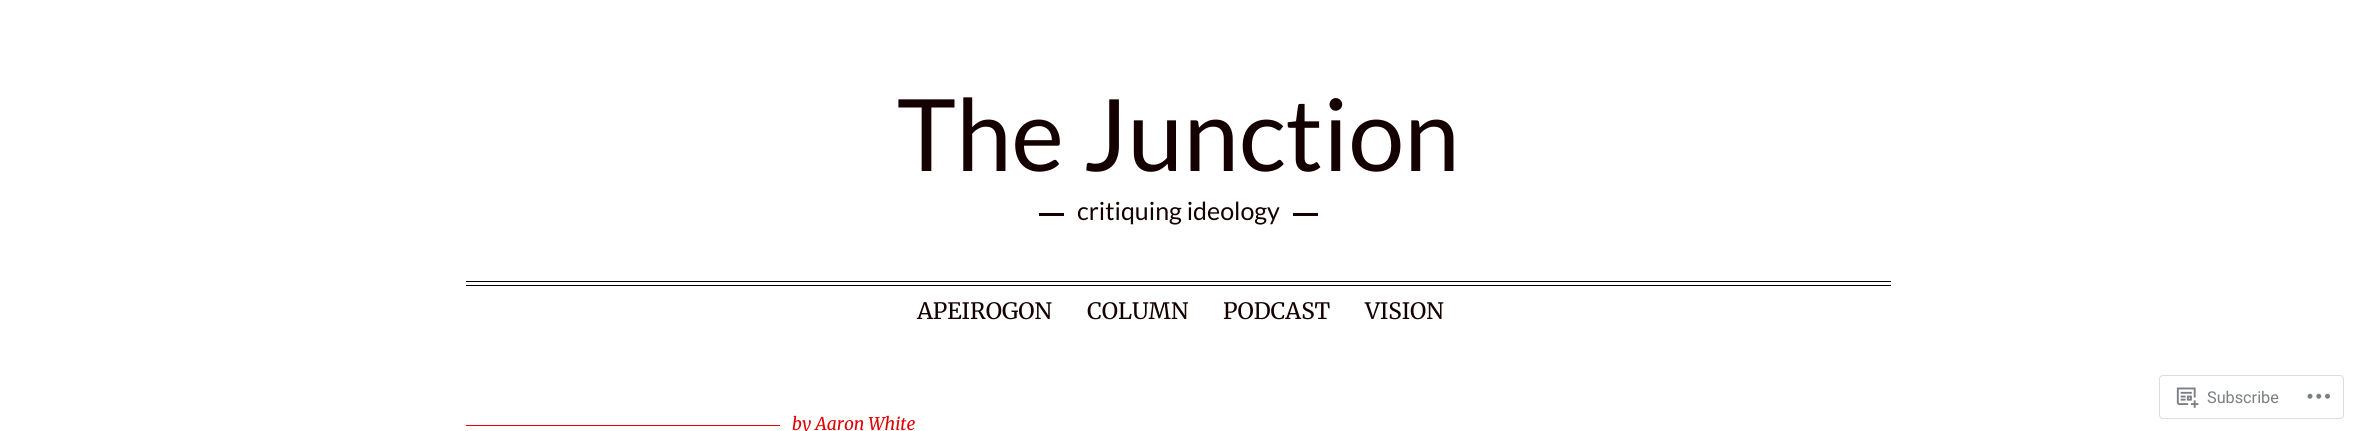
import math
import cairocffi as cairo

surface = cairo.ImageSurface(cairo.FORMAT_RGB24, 2356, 431)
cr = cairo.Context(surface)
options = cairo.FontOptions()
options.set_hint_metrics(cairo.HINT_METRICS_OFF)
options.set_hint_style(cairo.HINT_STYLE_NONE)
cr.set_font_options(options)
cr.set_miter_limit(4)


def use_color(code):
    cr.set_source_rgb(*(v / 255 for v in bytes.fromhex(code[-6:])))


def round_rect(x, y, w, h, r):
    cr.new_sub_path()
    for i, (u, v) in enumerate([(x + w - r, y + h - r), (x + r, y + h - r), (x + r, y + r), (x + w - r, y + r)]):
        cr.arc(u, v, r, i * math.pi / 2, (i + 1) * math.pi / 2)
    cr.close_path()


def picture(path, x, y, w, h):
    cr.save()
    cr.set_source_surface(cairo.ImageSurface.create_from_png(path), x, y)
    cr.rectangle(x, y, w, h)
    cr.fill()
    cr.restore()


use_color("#ffffff")
cr.paint()
cr.select_font_face("Lato")
cr.set_font_size(100)
use_color("#140000")
cr.move_to(897, 171)
cr.show_text("The Junction")
cr.rectangle(1039, 213, 25, 3)
cr.fill()
cr.set_font_size(25)
cr.move_to(1077, 220)
cr.show_text("critiquing ideology")
cr.rectangle(1293, 213, 25, 3)
cr.fill()
use_color("#000000")
cr.rectangle(466, 281, 1425, 1)
cr.fill()
cr.rectangle(466, 285, 1425, 1)
cr.fill()
cr.select_font_face("Merriweather")
cr.set_font_size(22.5)
use_color("#140000")
cr.move_to(917, 319)
cr.show_text("APEIROGON")
cr.move_to(1087, 319)
cr.show_text("COLUMN")
cr.move_to(1223, 319)
cr.show_text("PODCAST")
cr.move_to(1365, 319)
cr.show_text("VISION")
use_color("#de0202")
cr.rectangle(466, 425, 314, 1)
cr.fill()
cr.select_font_face("Merriweather", cairo.FONT_SLANT_ITALIC)
cr.set_font_size(17.5)
cr.move_to(792, 430)
cr.show_text("by Aaron White")
round_rect(2159.5, 375.5, 184, 43, 3.5)
use_color("#dddddf")
cr.set_line_width(1)
cr.stroke()
picture("img1.png", 2176, 387, 23, 21)
cr.select_font_face("Roboto")
cr.set_font_size(16.25)
use_color("#7b7f85")
cr.move_to(2207, 403)
cr.show_text("Subscribe")
picture("img2.png", 2307, 393, 23, 6)
surface.write_to_png("result.png")
